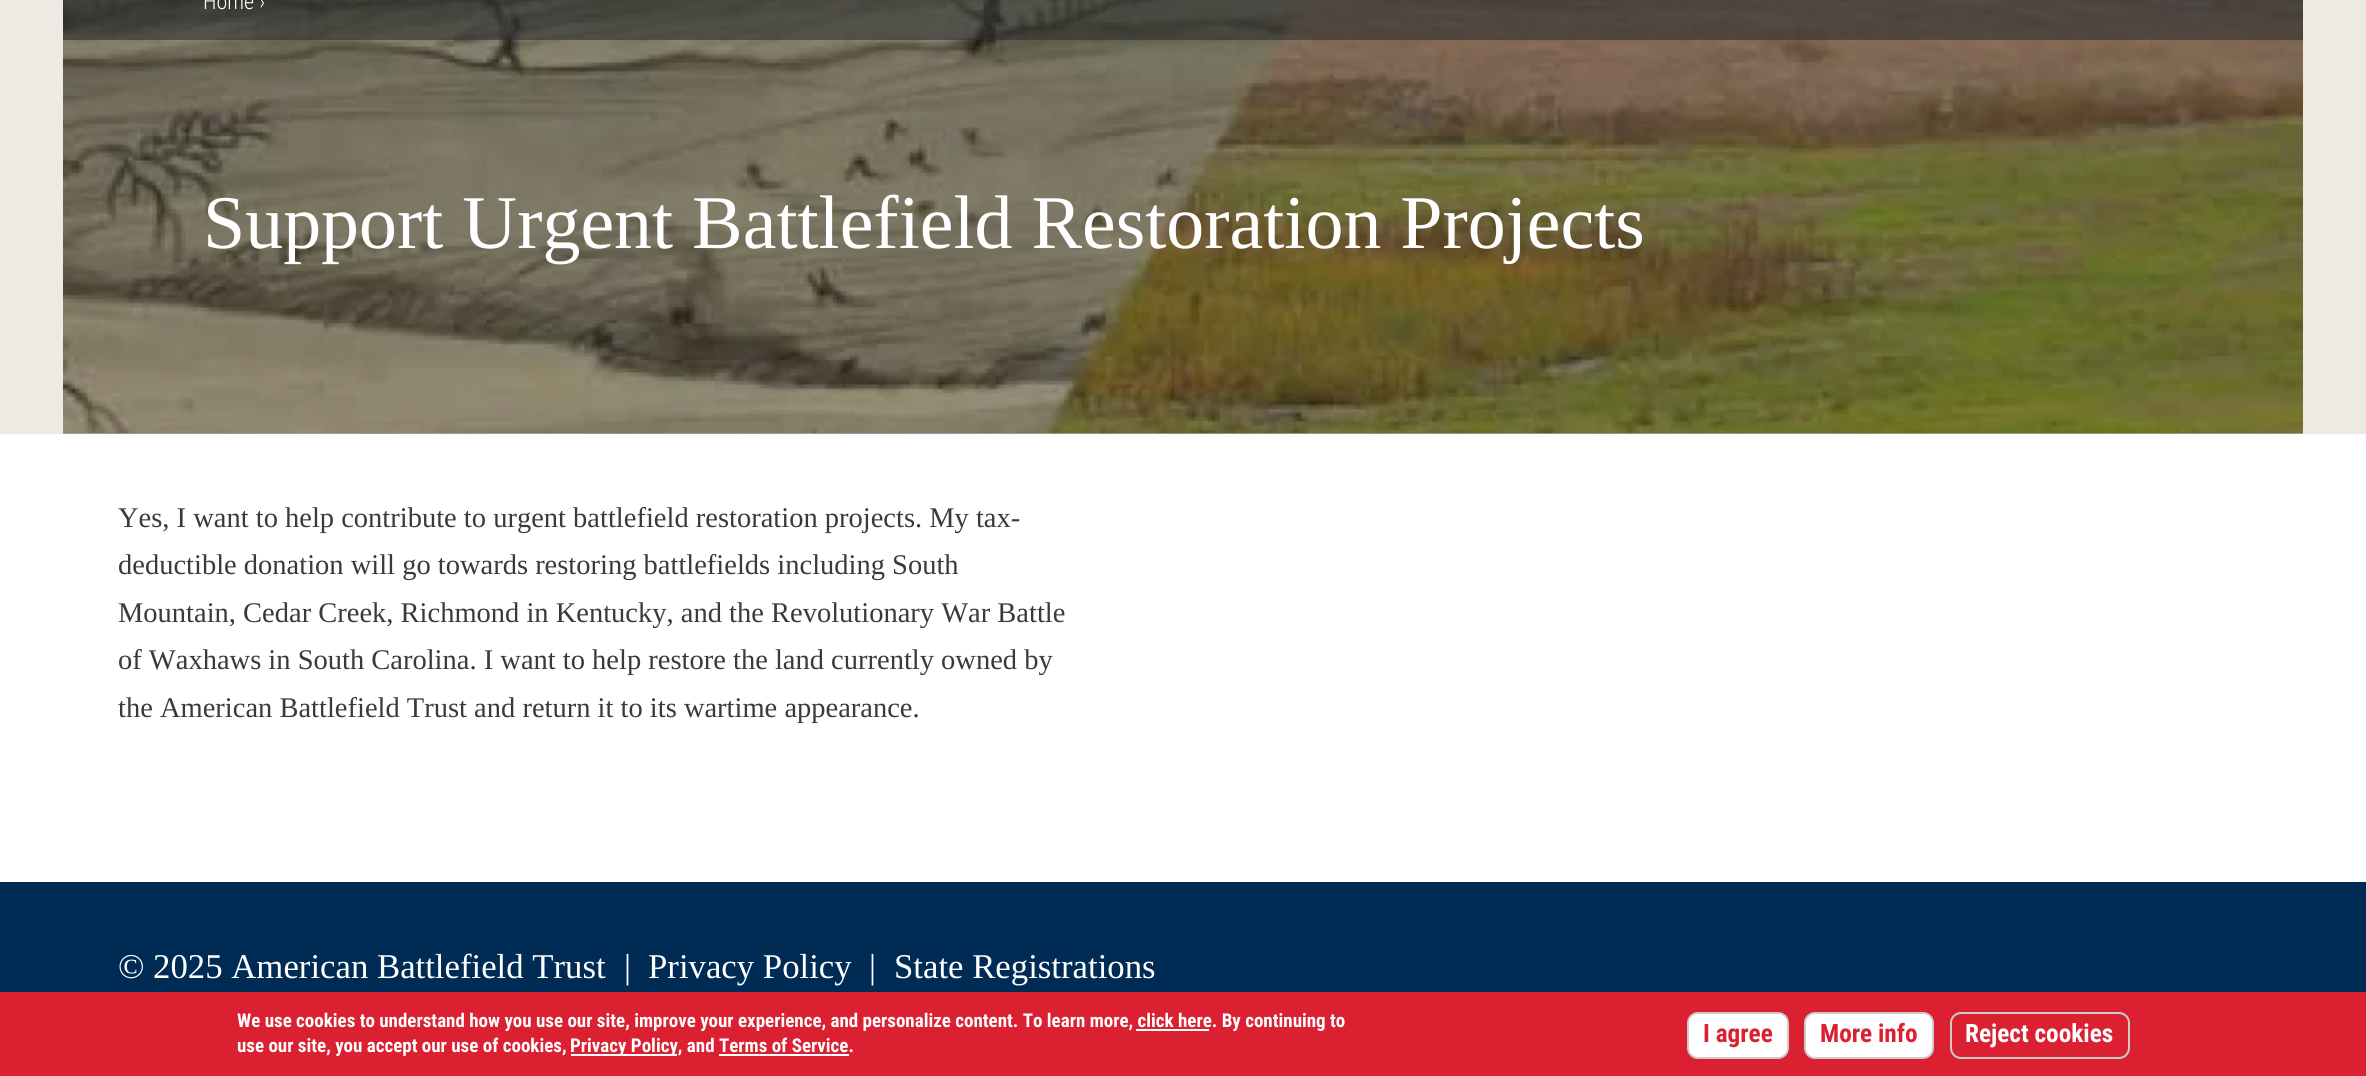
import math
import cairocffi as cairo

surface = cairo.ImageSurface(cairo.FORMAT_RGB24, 2366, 1076)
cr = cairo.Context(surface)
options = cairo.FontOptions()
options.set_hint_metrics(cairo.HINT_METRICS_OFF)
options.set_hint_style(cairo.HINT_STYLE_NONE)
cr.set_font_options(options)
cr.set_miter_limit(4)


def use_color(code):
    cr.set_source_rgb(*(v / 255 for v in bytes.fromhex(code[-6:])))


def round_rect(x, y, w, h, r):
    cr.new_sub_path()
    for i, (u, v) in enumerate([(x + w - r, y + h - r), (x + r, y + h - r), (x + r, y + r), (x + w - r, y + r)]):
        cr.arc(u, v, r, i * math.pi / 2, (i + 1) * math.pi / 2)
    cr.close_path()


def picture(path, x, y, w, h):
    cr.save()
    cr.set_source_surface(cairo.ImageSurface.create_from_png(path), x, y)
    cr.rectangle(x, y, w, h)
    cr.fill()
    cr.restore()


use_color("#ffffff")
cr.paint()
use_color("#edeae3")
cr.rectangle(0, 0, 2366, 434)
cr.fill()
use_color("#a6a49f")
cr.rectangle(63, 433, 2240, 1)
cr.fill()
picture("img1.png", 63, 433, 2240, 1)
picture("img2.png", 63, 0, 2240, 434)
cr.set_source_rgba(0.188, 0.192, 0.192, 0.6)
cr.rectangle(63, 0, 2240, 40)
cr.fill()
cr.select_font_face("Roboto Condensed Light")
cr.set_font_size(22)
use_color("#ffffff")
cr.move_to(203, 9)
cr.show_text("Home ›")
cr.select_font_face("Liberation Serif")
cr.set_font_size(75.9)
cr.move_to(203, 248)
cr.show_text("Support Urgent Battlefield Restoration Projects")
cr.set_font_size(28.5)
use_color("#3c3936")
cr.move_to(118, 527)
cr.show_text("Yes, I want to help contribute to urgent battlefield restoration projects. My tax-")
cr.move_to(118, 574)
cr.show_text("deductible donation will go towards restoring battlefields including South")
cr.move_to(118, 622)
cr.show_text("Mountain, Cedar Creek, Richmond in Kentucky, and the Revolutionary War Battle")
cr.move_to(118, 669)
cr.show_text("of Waxhaws in South Carolina. I want to help restore the land currently owned by")
cr.move_to(118, 717)
cr.show_text("the American Battlefield Trust and return it to its wartime appearance.")
use_color("#002b54")
cr.rectangle(0, 882, 2366, 110)
cr.fill()
cr.set_font_size(34.75)
use_color("#ffffff")
cr.move_to(118, 978)
cr.show_text("© 2025 American Battlefield Trust")
cr.move_to(624, 978)
cr.show_text("|")
cr.move_to(648, 978)
cr.show_text("Privacy Policy")
cr.move_to(869, 978)
cr.show_text("|")
cr.move_to(894, 978)
cr.show_text("State Registrations")
use_color("#db2032")
cr.rectangle(0, 992, 2366, 84)
cr.fill()
cr.select_font_face("Roboto Condensed", cairo.FONT_SLANT_NORMAL, cairo.FONT_WEIGHT_BOLD)
cr.set_font_size(18.98)
use_color("#ffffff")
cr.move_to(237, 1027)
cr.show_text("We use cookies to understand how you use our site, improve your experience, and personalize content. To learn more, click here. By continuing to")
cr.rectangle(1136, 1029, 73, 2)
cr.fill()
cr.move_to(237, 1052)
cr.show_text("use our site, you accept our use of cookies,")
cr.rectangle(571, 1054, 106, 2)
cr.fill()
cr.move_to(570, 1052)
cr.show_text("Privacy Policy, and Terms of Service.")
cr.rectangle(719, 1054, 130, 2)
cr.fill()
round_rect(1688, 1013, 100, 45, 10)
cr.fill_preserve()
use_color("#cdcccc")
cr.stroke()
cr.set_font_size(25.25)
use_color("#db2032")
cr.move_to(1703, 1042)
cr.show_text("I agree")
use_color("#ffffff")
round_rect(1805, 1013, 128, 45, 10)
cr.fill_preserve()
use_color("#cdcccc")
cr.stroke()
use_color("#db2032")
cr.move_to(1820, 1042)
cr.show_text("More info")
round_rect(1951, 1013, 178, 45, 10)
use_color("#cdcccc")
cr.stroke()
use_color("#ffffff")
cr.move_to(1965, 1042)
cr.show_text("Reject cookies")
surface.write_to_png("result.png")
